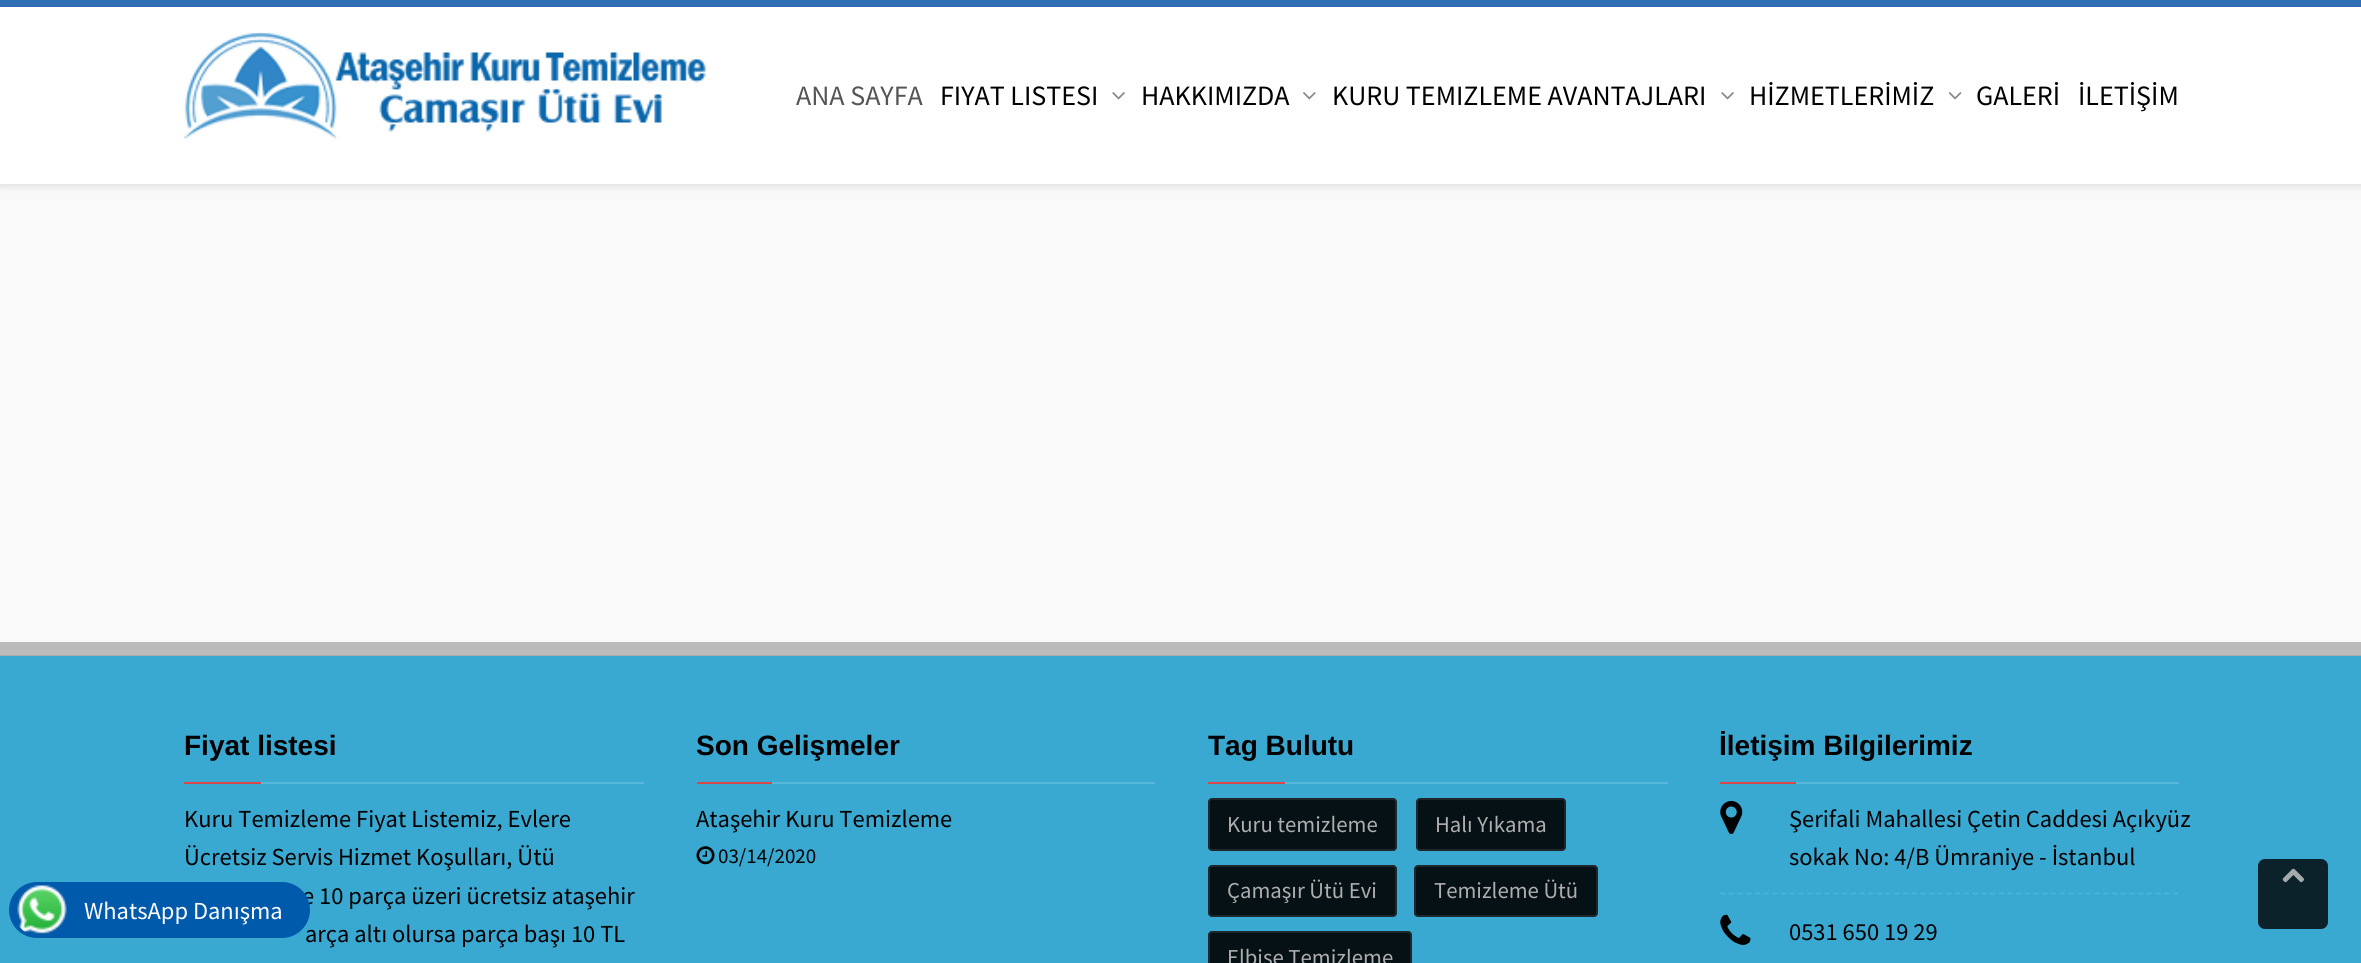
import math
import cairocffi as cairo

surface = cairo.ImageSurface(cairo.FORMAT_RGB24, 2361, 963)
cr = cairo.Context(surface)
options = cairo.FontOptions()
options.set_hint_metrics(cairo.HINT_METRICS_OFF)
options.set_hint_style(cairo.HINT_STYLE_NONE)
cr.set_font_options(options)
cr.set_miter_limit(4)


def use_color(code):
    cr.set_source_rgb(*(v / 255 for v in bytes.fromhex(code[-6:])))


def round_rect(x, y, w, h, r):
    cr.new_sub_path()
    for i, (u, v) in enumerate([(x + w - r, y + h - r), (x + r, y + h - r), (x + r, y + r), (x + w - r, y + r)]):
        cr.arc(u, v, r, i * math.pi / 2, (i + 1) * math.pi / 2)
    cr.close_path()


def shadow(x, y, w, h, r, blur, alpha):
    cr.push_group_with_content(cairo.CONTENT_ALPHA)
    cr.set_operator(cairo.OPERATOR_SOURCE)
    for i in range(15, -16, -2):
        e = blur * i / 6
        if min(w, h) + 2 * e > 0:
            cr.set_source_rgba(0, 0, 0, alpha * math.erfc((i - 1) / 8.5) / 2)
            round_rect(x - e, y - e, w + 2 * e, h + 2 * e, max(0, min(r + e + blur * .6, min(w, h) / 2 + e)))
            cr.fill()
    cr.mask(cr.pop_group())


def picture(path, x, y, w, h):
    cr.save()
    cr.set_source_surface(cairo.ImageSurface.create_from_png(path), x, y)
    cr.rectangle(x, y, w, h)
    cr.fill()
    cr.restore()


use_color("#f9f9f9")
cr.paint()
use_color("#316fb5")
cr.rectangle(0, 0, 2361, 7)
cr.fill()
use_color("#000000")
shadow(0, 11, 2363, 176, 0, 3.5, 0.1)
use_color("#ffffff")
cr.rectangle(0, 7, 2361, 177)
cr.fill()
picture("img1.png", 183, 32, 523, 107)
cr.select_font_face("Source Sans Pro")
cr.set_font_size(28)
use_color("#555555")
cr.move_to(796, 105)
cr.show_text("ANA SAYFA")
use_color("#000000")
cr.move_to(940, 105)
cr.show_text("FIYAT LISTESI")
picture("img2.png", 1112, 92, 13, 8)
cr.move_to(1141, 105)
cr.show_text("HAKKIMIZDA")
picture("img3.png", 1303, 92, 13, 8)
cr.move_to(1332, 105)
cr.show_text("KURU TEMIZLEME AVANTAJLARI")
picture("img2.png", 1721, 92, 13, 8)
cr.move_to(1749, 105)
cr.show_text("HİZMETLERİMİZ")
picture("img4.png", 1948, 92, 14, 8)
cr.move_to(1976, 105)
cr.show_text("GALERİ")
cr.move_to(2078, 105)
cr.show_text("İLETİŞİM")
use_color("#39a9d2")
cr.rectangle(0, 656, 2361, 307)
cr.fill()
cr.set_font_size(24.5)
use_color("#000000")
cr.move_to(302, 904)
cr.show_text("e 10 parça üzeri ücretsiz ataşehir")
cr.move_to(305, 942)
cr.show_text("arça altı olursa parça başı 10 TL")
use_color("#005aab")
round_rect(9, 882, 301, 56, 28)
cr.fill()
picture("img5.png", 17, 885, 50, 50)
use_color("#ffffff")
cr.move_to(84, 919)
cr.show_text("WhatsApp Danışma")
use_color("#e4e4e4")
cr.rectangle(0, 655, 2361, 1)
cr.fill()
cr.set_source_rgba(0, 0, 0, 0.25)
cr.new_path()
cr.move_to(0, 642)
cr.line_to(0, 656)
cr.line_to(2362, 656)
cr.line_to(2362, 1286)
cr.line_to(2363, 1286)
cr.line_to(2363, 642)
cr.close_path()
cr.fill()
cr.select_font_face("Liberation Sans", cairo.FONT_SLANT_NORMAL, cairo.FONT_WEIGHT_BOLD)
cr.set_font_size(28)
use_color("#000000")
cr.move_to(184, 755)
cr.show_text("Fiyat listesi")
use_color("#57b6d9")
cr.rectangle(261, 782, 383, 2)
cr.fill()
use_color("#d84747")
cr.rectangle(184, 782, 77, 2)
cr.fill()
cr.select_font_face("Source Sans Pro")
cr.set_font_size(24.5)
use_color("#000000")
cr.move_to(184, 827)
cr.show_text("Kuru Temizleme Fiyat Listemiz, Evlere")
cr.move_to(184, 865)
cr.show_text("Ücretsiz Servis Hizmet Koşulları, Ütü")
cr.select_font_face("Liberation Sans", cairo.FONT_SLANT_NORMAL, cairo.FONT_WEIGHT_BOLD)
cr.set_font_size(28)
cr.move_to(696, 755)
cr.show_text("Son Gelişmeler")
use_color("#57b6d9")
cr.rectangle(772, 782, 383, 2)
cr.fill()
use_color("#d84747")
cr.rectangle(697, 782, 75, 2)
cr.fill()
cr.select_font_face("Source Sans Pro")
cr.set_font_size(24.5)
use_color("#000000")
cr.move_to(696, 827)
cr.show_text("Ataşehir Kuru Temizleme")
picture("img6.png", 696, 846, 19, 19)
cr.set_font_size(21)
cr.move_to(718, 863)
cr.show_text("03/14/2020")
cr.select_font_face("Liberation Sans", cairo.FONT_SLANT_NORMAL, cairo.FONT_WEIGHT_BOLD)
cr.set_font_size(28)
cr.move_to(1208, 755)
cr.show_text("Tag Bulutu")
use_color("#57b6d9")
cr.rectangle(1285, 782, 383, 2)
cr.fill()
use_color("#d84747")
cr.rectangle(1208, 782, 77, 2)
cr.fill()
use_color("#061115")
round_rect(1208, 798, 189, 53, 4)
cr.fill()
round_rect(1209, 799, 187, 51, 3)
cr.set_source_rgba(1, 1, 1, 0.1)
cr.stroke()
cr.select_font_face("Source Sans Pro")
cr.set_font_size(22.75)
use_color("#aeaeae")
cr.move_to(1227, 832)
cr.show_text("Kuru temizleme")
use_color("#061115")
round_rect(1416, 798, 150, 53, 4)
cr.fill()
round_rect(1417, 799, 148, 51, 3)
cr.set_source_rgba(1, 1, 1, 0.1)
cr.stroke()
use_color("#aeaeae")
cr.move_to(1435, 832)
cr.show_text("Halı Yıkama")
use_color("#061115")
round_rect(1208, 865, 189, 52, 4)
cr.fill()
round_rect(1209, 866, 187, 50, 3)
cr.set_source_rgba(1, 1, 1, 0.1)
cr.stroke()
use_color("#aeaeae")
cr.move_to(1227, 898)
cr.show_text("Çamaşır Ütü Evi")
use_color("#061115")
round_rect(1414, 865, 184, 52, 4)
cr.fill()
round_rect(1415, 866, 182, 50, 3)
cr.set_source_rgba(1, 1, 1, 0.1)
cr.stroke()
use_color("#aeaeae")
cr.move_to(1434, 898)
cr.show_text("Temizleme Ütü")
use_color("#061115")
round_rect(1208, 931, 204, 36, 4)
cr.fill()
round_rect(1209, 932, 202, 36, 3)
cr.set_source_rgba(1, 1, 1, 0.1)
cr.stroke()
use_color("#aeaeae")
cr.move_to(1227, 965)
cr.show_text("Elbise Temizleme")
cr.select_font_face("Liberation Sans", cairo.FONT_SLANT_NORMAL, cairo.FONT_WEIGHT_BOLD)
cr.set_font_size(28)
use_color("#000000")
cr.move_to(1719, 755)
cr.show_text("İletişim Bilgilerimiz")
use_color("#57b6d9")
cr.rectangle(1796, 782, 383, 2)
cr.fill()
use_color("#d84747")
cr.rectangle(1720, 782, 76, 2)
cr.fill()
cr.new_path()
cr.move_to(1720, 893.5)
cr.line_to(2179, 893.5)
use_color("#4db2d7")
cr.set_line_width(1.8)
cr.set_dash([5.25, 3.46])
cr.stroke()
picture("img7.png", 1720, 801, 23, 33)
cr.select_font_face("Source Sans Pro")
cr.set_font_size(24.5)
use_color("#000000")
cr.move_to(1789, 827)
cr.show_text("Şerifali Mahallesi Çetin Caddesi Açıkyüz")
cr.move_to(1789, 865)
cr.show_text("sokak No: 4/B Ümraniye - İstanbul")
picture("img8.png", 1720, 914, 31, 31)
cr.move_to(1789, 940)
cr.show_text("0531 650 19 29")
use_color("#0b222a")
round_rect(2258, 859, 70, 70, 7)
cr.fill()
picture("img9.png", 2282, 868, 22, 15)
surface.write_to_png("result.png")
